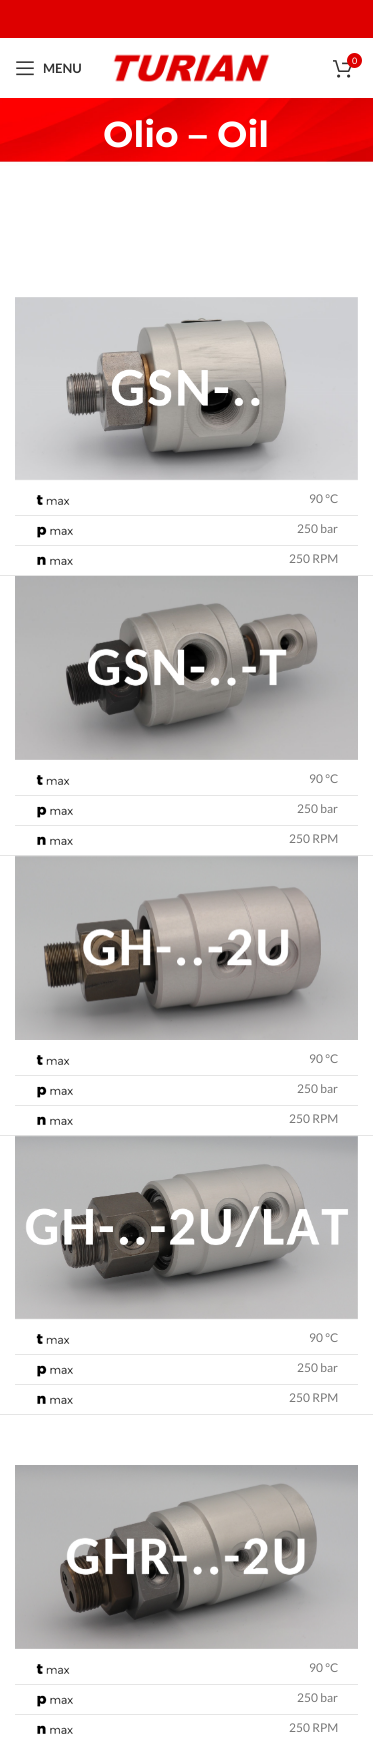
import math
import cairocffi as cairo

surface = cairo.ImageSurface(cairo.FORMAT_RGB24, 373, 1744)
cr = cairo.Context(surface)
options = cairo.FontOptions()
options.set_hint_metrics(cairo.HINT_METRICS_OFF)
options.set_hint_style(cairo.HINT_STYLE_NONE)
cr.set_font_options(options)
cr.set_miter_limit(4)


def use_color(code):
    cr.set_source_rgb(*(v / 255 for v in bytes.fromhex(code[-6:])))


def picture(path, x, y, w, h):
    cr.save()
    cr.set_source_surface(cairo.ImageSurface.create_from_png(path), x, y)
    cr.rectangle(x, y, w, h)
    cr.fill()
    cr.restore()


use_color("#ffffff")
cr.paint()
use_color("#dd0000")
cr.rectangle(0, 0, 373, 38)
cr.fill()
picture("img1.png", 113, 54, 157, 28)
picture("img2.png", 333, 60, 19, 18)
cr.arc(354.5, 60.5, 7.5, 0, 2 * math.pi)
cr.fill()
cr.select_font_face("Lato")
cr.set_font_size(9)
use_color("#ffffff")
cr.move_to(352, 64)
cr.show_text("0")
picture("img3.png", 16, 61, 18, 15)
cr.select_font_face("Lato", cairo.FONT_SLANT_NORMAL, cairo.FONT_WEIGHT_BOLD)
cr.set_font_size(13)
use_color("#333333")
cr.move_to(43, 73)
cr.show_text("MENU")
picture("img4.png", 0, 98, 373, 68)
cr.select_font_face("Montserrat", cairo.FONT_SLANT_NORMAL, cairo.FONT_WEIGHT_BOLD)
cr.set_font_size(36)
use_color("#ffffff")
cr.move_to(103, 147)
cr.show_text("Olio – Oil")
picture("img5.png", 15, 297, 343, 184)
use_color("#e5e5e5")
cr.rectangle(0, 575, 373, 1)
cr.fill()
cr.rectangle(15, 515, 343, 1)
cr.fill()
picture("img6.png", 36, 495, 34, 11)
cr.select_font_face("Lato")
cr.set_font_size(12)
use_color("#777777")
cr.move_to(309, 503)
cr.show_text("90 °C")
use_color("#e5e5e5")
cr.rectangle(15, 545, 343, 1)
cr.fill()
picture("img7.png", 37, 526, 36, 12)
use_color("#777777")
cr.move_to(297, 533)
cr.show_text("250 bar")
picture("img8.png", 37, 556, 36, 10)
cr.move_to(289, 563)
cr.show_text("250 RPM")
picture("img9.png", 15, 576, 343, 184)
use_color("#e5e5e5")
cr.rectangle(0, 855, 373, 1)
cr.fill()
cr.rectangle(15, 795, 343, 1)
cr.fill()
picture("img6.png", 36, 775, 34, 11)
use_color("#777777")
cr.move_to(309, 783)
cr.show_text("90 °C")
use_color("#e5e5e5")
cr.rectangle(15, 825, 343, 1)
cr.fill()
picture("img7.png", 37, 806, 36, 12)
use_color("#777777")
cr.move_to(297, 813)
cr.show_text("250 bar")
picture("img8.png", 37, 836, 36, 10)
cr.move_to(289, 843)
cr.show_text("250 RPM")
picture("img10.png", 15, 855, 343, 185)
use_color("#e5e5e5")
cr.rectangle(0, 1135, 373, 1)
cr.fill()
cr.rectangle(15, 1075, 343, 1)
cr.fill()
picture("img6.png", 36, 1055, 34, 11)
use_color("#777777")
cr.move_to(309, 1063)
cr.show_text("90 °C")
use_color("#e5e5e5")
cr.rectangle(15, 1105, 343, 1)
cr.fill()
picture("img7.png", 37, 1086, 36, 12)
use_color("#777777")
cr.move_to(297, 1093)
cr.show_text("250 bar")
picture("img8.png", 37, 1116, 36, 10)
cr.move_to(289, 1123)
cr.show_text("250 RPM")
picture("img11.png", 15, 1135, 343, 185)
use_color("#e5e5e5")
cr.rectangle(0, 1414, 373, 1)
cr.fill()
cr.rectangle(15, 1354, 343, 1)
cr.fill()
picture("img6.png", 36, 1334, 34, 11)
use_color("#777777")
cr.move_to(309, 1342)
cr.show_text("90 °C")
use_color("#e5e5e5")
cr.rectangle(15, 1384, 343, 1)
cr.fill()
picture("img7.png", 37, 1365, 36, 12)
use_color("#777777")
cr.move_to(297, 1372)
cr.show_text("250 bar")
picture("img8.png", 37, 1395, 36, 10)
cr.move_to(289, 1402)
cr.show_text("250 RPM")
picture("img12.png", 15, 1465, 343, 184)
use_color("#e5e5e5")
cr.rectangle(15, 1684, 343, 1)
cr.fill()
picture("img6.png", 36, 1664, 34, 11)
use_color("#777777")
cr.move_to(309, 1672)
cr.show_text("90 °C")
use_color("#e5e5e5")
cr.rectangle(15, 1714, 343, 1)
cr.fill()
picture("img7.png", 37, 1695, 36, 12)
use_color("#777777")
cr.move_to(297, 1702)
cr.show_text("250 bar")
picture("img8.png", 37, 1725, 36, 10)
cr.move_to(289, 1732)
cr.show_text("250 RPM")
surface.write_to_png("result.png")
